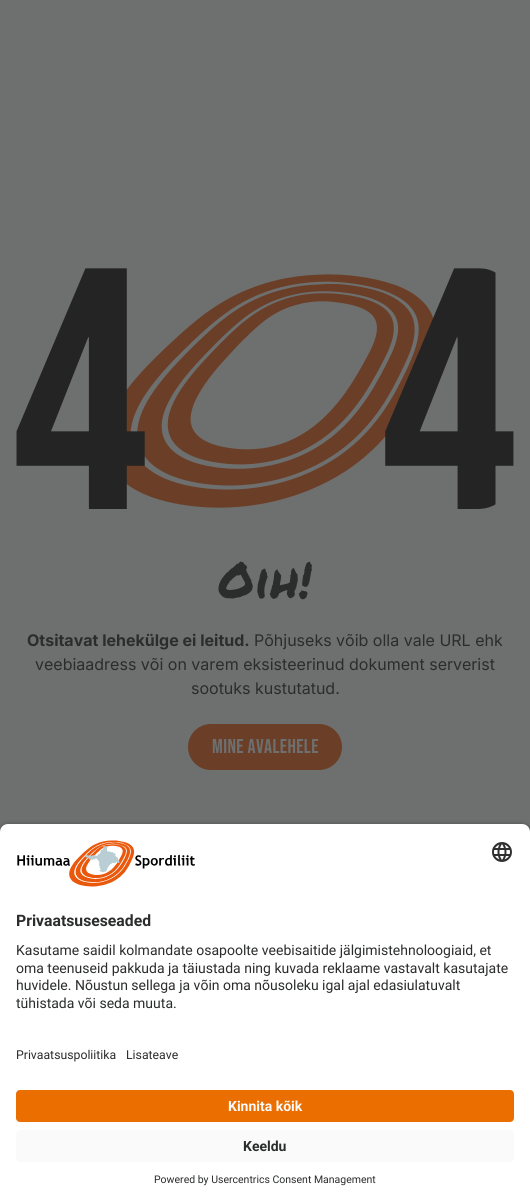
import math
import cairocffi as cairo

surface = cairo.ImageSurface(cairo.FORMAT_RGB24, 530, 1202)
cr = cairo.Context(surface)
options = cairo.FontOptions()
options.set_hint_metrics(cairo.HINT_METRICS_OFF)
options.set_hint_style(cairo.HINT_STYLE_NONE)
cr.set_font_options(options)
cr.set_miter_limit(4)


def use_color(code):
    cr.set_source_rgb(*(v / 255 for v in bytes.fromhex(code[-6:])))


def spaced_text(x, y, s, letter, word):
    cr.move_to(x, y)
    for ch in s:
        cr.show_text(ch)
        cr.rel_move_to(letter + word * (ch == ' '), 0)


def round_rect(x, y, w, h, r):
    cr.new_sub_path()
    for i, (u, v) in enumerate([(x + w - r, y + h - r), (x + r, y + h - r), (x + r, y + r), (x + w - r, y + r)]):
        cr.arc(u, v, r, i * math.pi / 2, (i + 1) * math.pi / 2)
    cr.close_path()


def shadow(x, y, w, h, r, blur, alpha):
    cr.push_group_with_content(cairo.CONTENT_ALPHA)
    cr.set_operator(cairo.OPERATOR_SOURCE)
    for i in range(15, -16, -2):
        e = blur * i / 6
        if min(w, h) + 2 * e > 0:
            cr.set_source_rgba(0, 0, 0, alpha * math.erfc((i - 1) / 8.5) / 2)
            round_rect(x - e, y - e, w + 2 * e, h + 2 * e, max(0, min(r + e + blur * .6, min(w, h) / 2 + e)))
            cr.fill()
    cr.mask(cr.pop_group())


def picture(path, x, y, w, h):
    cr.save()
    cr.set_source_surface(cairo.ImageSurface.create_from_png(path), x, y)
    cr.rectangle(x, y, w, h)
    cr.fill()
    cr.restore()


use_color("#6e6f6f")
cr.paint()
picture("img1.png", 16, 268, 498, 241)
cr.select_font_face("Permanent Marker")
cr.set_font_size(49)
use_color("#2b2c2c")
cr.move_to(218, 598)
cr.show_text("Oih!")
cr.select_font_face("Inter", cairo.FONT_SLANT_NORMAL, cairo.FONT_WEIGHT_BOLD)
cr.set_font_size(16)
cr.move_to(27, 646)
cr.show_text("Otsitavat lehekülge ei leitud.")
cr.select_font_face("Inter")
cr.move_to(254, 646)
cr.show_text("Põhjuseks võib olla vale URL ehk")
cr.move_to(35, 670)
cr.show_text("veebiaadress või on varem eksisteerinud dokument serverist")
cr.move_to(191, 694)
cr.show_text("sootuks kustutatud.")
use_color("#6a3e27")
round_rect(188, 724, 154, 46, 23)
cr.fill()
cr.select_font_face("Bebas Neue")
cr.set_font_size(20)
use_color("#6e6f6f")
spaced_text(212, 753, "MINE AVALEHELE", 0.4, 0)
use_color("#000000")
shadow(0, 827, 530, 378, 8, 3.5, 0.8)
use_color("#ffffff")
cr.new_path()
cr.move_to(8, 824)
cr.line_to(522, 824)
cr.curve_to(526.5, 824, 530, 827.5, 530, 832)
cr.line_to(530, 1032)
cr.line_to(0, 1032)
cr.line_to(0, 832)
cr.curve_to(0, 827.5, 3.5, 824, 8, 824)
cr.close_path()
cr.fill()
picture("img2.png", 17, 840, 178, 47)
picture("img3.png", 492, 842, 20, 20)
cr.select_font_face("Roboto", cairo.FONT_SLANT_NORMAL, cairo.FONT_WEIGHT_BOLD)
cr.set_font_size(15.75)
use_color("#2b2c2c")
cr.move_to(16, 926)
cr.show_text("Privaatsuseseaded")
cr.select_font_face("Roboto")
cr.set_font_size(14)
cr.move_to(16, 955)
cr.show_text("Kasutame saidil kolmandate osapoolte veebisaitide jälgimistehnoloogiaid, et")
cr.move_to(16, 973)
cr.show_text("oma teenuseid pakkuda ja täiustada ning kuvada reklaame vastavalt kasutajate")
cr.move_to(16, 990)
cr.show_text("huvidele. Nõustun sellega ja võin oma nõusoleku igal ajal edasiulatuvalt")
cr.move_to(16, 1008)
cr.show_text("tühistada või seda muuta.")
use_color("#ffffff")
cr.rectangle(0, 1032, 530, 170)
cr.fill()
cr.set_font_size(12.25)
use_color("#2b2c2c")
cr.move_to(16, 1059)
cr.show_text("Privaatsuspoliitika")
cr.move_to(126, 1059)
cr.show_text("Lisateave")
use_color("#eb6f00")
round_rect(16, 1090, 498, 32, 4)
cr.fill()
cr.select_font_face("Roboto", cairo.FONT_SLANT_NORMAL, cairo.FONT_WEIGHT_BOLD)
cr.set_font_size(14)
use_color("#fafafa")
cr.move_to(228, 1111)
cr.show_text("Kinnita kõik")
round_rect(16, 1130, 498, 32, 4)
cr.fill()
use_color("#2b2c2c")
cr.move_to(243, 1151)
cr.show_text("Keeldu")
cr.select_font_face("Roboto")
cr.set_font_size(10.5)
cr.move_to(154, 1183)
cr.show_text("Powered by Usercentrics Consent Management")
surface.write_to_png("result.png")
